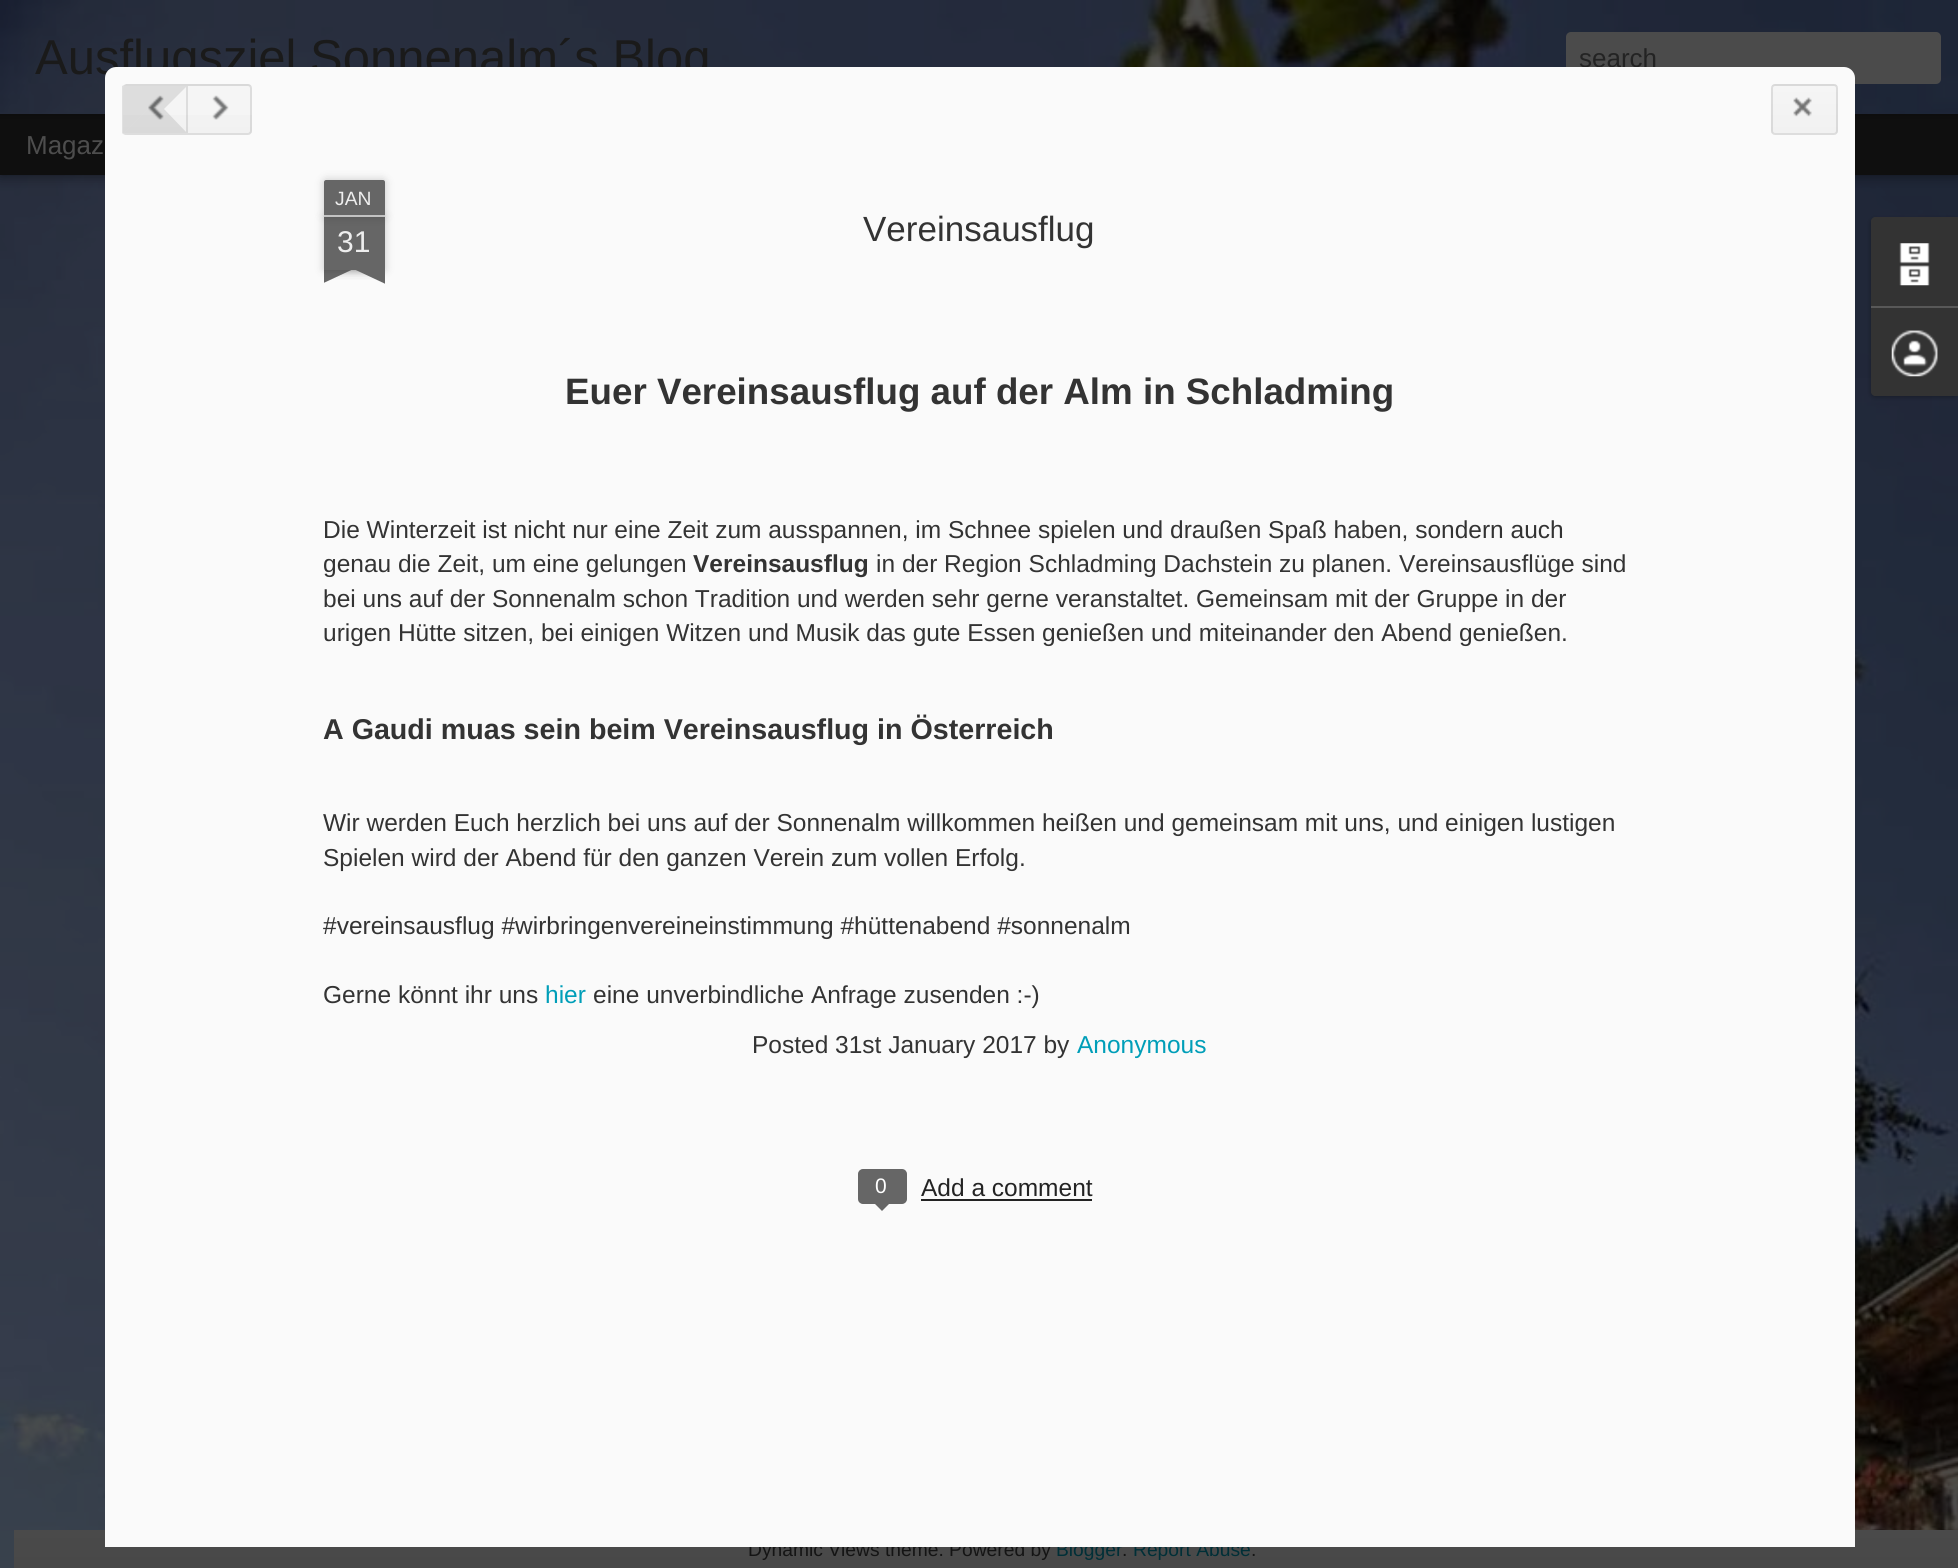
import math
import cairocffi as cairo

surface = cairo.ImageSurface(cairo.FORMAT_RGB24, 1958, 1568)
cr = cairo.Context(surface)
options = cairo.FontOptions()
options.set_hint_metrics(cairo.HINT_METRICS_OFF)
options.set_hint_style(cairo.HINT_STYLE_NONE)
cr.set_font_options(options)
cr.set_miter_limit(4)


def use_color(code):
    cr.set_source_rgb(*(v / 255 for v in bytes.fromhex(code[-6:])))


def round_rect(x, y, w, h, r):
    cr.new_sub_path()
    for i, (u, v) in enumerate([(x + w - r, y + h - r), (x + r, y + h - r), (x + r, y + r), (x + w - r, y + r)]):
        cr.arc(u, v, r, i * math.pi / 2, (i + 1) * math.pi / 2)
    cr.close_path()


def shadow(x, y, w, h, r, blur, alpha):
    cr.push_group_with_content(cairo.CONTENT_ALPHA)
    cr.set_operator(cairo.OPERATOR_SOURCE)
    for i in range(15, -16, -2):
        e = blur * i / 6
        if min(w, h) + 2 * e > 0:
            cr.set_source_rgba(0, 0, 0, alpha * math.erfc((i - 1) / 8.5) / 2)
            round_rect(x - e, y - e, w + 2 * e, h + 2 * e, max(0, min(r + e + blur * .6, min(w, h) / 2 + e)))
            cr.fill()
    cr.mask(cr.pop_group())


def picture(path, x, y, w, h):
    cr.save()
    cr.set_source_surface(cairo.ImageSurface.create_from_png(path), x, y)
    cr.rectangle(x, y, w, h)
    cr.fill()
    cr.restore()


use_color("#ffffff")
cr.paint()
picture("img1.png", 0, 175, 1958, 1393)
use_color("#000000")
shadow(0, 114, 1958, 61, 0, 7, 0.5)
use_color("#0f0f0f")
cr.rectangle(0, 114, 1958, 61)
cr.fill()
use_color("#000000")
shadow(0, 0, 1958, 114, 0, 4.5, 0.3)
picture("img2.png", 0, 0, 1958, 114)
cr.select_font_face("Liberation Sans")
cr.set_font_size(49)
use_color("#1a1a1a")
cr.move_to(35, 74)
cr.show_text("Ausflugsziel Sonnenalm´s Blog")
use_color("#4b4b4b")
round_rect(1566, 32, 375, 52, 5)
cr.fill()
cr.set_font_size(26)
use_color("#232323")
cr.move_to(1579, 67)
cr.show_text("search")
use_color("#4d4d4d")
cr.move_to(26, 154)
cr.show_text("Magaz")
gradient = cairo.LinearGradient(1002, 1529, 1002, 1568)
gradient.add_color_stop_rgba(0, 0.29, 0.29, 0.29, 1)
gradient.add_color_stop_rgba(1, 0.282, 0.282, 0.282, 1)
cr.set_source(gradient)
cr.rectangle(14, 1530, 1944, 38)
cr.fill()
cr.set_font_size(19.25)
use_color("#141414")
cr.move_to(748, 1556)
cr.show_text("Dynamic Views theme. Powered by")
use_color("#002f37")
cr.move_to(1056, 1556)
cr.show_text("Blogger")
cr.move_to(1133, 1556)
cr.show_text("Report Abuse")
use_color("#fafafa")
cr.new_path()
cr.move_to(116, 67)
cr.line_to(1844, 67)
cr.curve_to(1850, 67, 1855, 72, 1855, 78)
cr.line_to(1855, 1547)
cr.line_to(105, 1547)
cr.line_to(105, 78)
cr.curve_to(105, 72, 110, 67, 116, 67)
cr.close_path()
cr.fill()
use_color("#f5f5f5")
cr.new_path()
cr.move_to(127, 84)
cr.line_to(189, 84)
cr.line_to(189, 135)
cr.line_to(127, 135)
cr.curve_to(125, 135, 123, 133, 123, 131)
cr.line_to(123, 88)
cr.curve_to(123, 86, 125, 84, 127, 84)
cr.close_path()
cr.fill()
cr.save()
cr.new_path()
cr.move_to(127, 84)
cr.line_to(189, 84)
cr.line_to(189, 135)
cr.line_to(127, 135)
cr.curve_to(125, 135, 123, 133, 123, 131)
cr.line_to(123, 88)
cr.curve_to(123, 86, 125, 84, 127, 84)
cr.close_path()
cr.clip()
gradient = cairo.LinearGradient(156, 39, 156, 86)
gradient.add_color_stop_rgba(0, 0.961, 0.961, 0.961, 1)
gradient.add_color_stop_rgba(1, 0.945, 0.945, 0.945, 1)
cr.set_source(gradient)
cr.rectangle(123, 84, 66, 2)
cr.fill()
cr.restore()
gradient = cairo.LinearGradient(156, 86, 156, 133)
gradient.add_color_stop_rgba(0, 0.961, 0.961, 0.961, 1)
gradient.add_color_stop_rgba(1, 0.945, 0.945, 0.945, 1)
cr.set_source(gradient)
cr.rectangle(123, 115, 63, 18)
cr.fill()
cr.set_source_rgba(0, 0, 0, 0.1)
cr.new_path()
cr.move_to(126, 84)
cr.line_to(189, 84)
cr.line_to(164, 109)
cr.line_to(148, 109)
cr.line_to(124, 85)
cr.close_path()
cr.fill()
cr.new_path()
cr.move_to(189, 135)
cr.line_to(164, 109)
cr.line_to(148, 109)
cr.line_to(123, 134)
cr.line_to(125, 135)
cr.close_path()
cr.fill()
cr.new_path()
cr.move_to(123, 134)
cr.line_to(148, 109)
cr.line_to(124, 85)
cr.line_to(122, 86)
cr.line_to(122, 133)
cr.close_path()
cr.fill()
picture("img3.png", 148, 95, 16, 25)
use_color("#f5f5f5")
cr.new_path()
cr.move_to(186, 84)
cr.line_to(248, 84)
cr.curve_to(250, 84, 252, 86, 252, 88)
cr.line_to(252, 131)
cr.curve_to(252, 133, 250, 135, 248, 135)
cr.line_to(186, 135)
cr.close_path()
cr.fill()
cr.save()
cr.new_path()
cr.move_to(186, 84)
cr.line_to(248, 84)
cr.curve_to(250, 84, 252, 86, 252, 88)
cr.line_to(252, 131)
cr.curve_to(252, 133, 250, 135, 248, 135)
cr.line_to(186, 135)
cr.close_path()
cr.clip()
gradient = cairo.LinearGradient(219, 39, 219, 86)
gradient.add_color_stop_rgba(0, 0.961, 0.961, 0.961, 1)
gradient.add_color_stop_rgba(1, 0.945, 0.945, 0.945, 1)
cr.set_source(gradient)
cr.rectangle(186, 84, 66, 2)
cr.fill()
cr.restore()
gradient = cairo.LinearGradient(219, 86, 219, 133)
gradient.add_color_stop_rgba(0, 0.961, 0.961, 0.961, 1)
gradient.add_color_stop_rgba(1, 0.945, 0.945, 0.945, 1)
cr.set_source(gradient)
cr.rectangle(186, 115, 66, 18)
cr.fill()
cr.new_path()
cr.move_to(187, 85)
cr.line_to(248, 85)
cr.curve_to(249.5, 85, 251, 86.5, 251, 88)
cr.line_to(251, 131)
cr.curve_to(251, 132.5, 249.5, 134, 248, 134)
cr.line_to(187, 134)
cr.close_path()
cr.set_source_rgba(0, 0, 0, 0.1)
cr.stroke()
picture("img4.png", 212, 95, 17, 25)
use_color("#f5f5f5")
round_rect(1771, 84, 67, 51, 4)
cr.fill()
cr.save()
round_rect(1771, 84, 67, 51, 4)
cr.clip()
gradient = cairo.LinearGradient(1804, 39, 1804, 86)
gradient.add_color_stop_rgba(0, 0.961, 0.961, 0.961, 1)
gradient.add_color_stop_rgba(1, 0.945, 0.945, 0.945, 1)
cr.set_source(gradient)
cr.rectangle(1771, 84, 67, 2)
cr.fill()
gradient = cairo.LinearGradient(1804, 86, 1804, 133)
gradient.add_color_stop_rgba(0, 0.961, 0.961, 0.961, 1)
gradient.add_color_stop_rgba(1, 0.945, 0.945, 0.945, 1)
cr.set_source(gradient)
cr.rectangle(1771, 86, 67, 47)
cr.fill()
cr.restore()
round_rect(1772, 85, 65, 49, 3)
cr.set_source_rgba(0, 0, 0, 0.1)
cr.stroke()
picture("img5.png", 1793, 97, 19, 20)
use_color("#000000")
shadow(324, 217, 61, 53, 0, 4.5, 0.2)
use_color("#666666")
cr.rectangle(324, 217, 61, 53)
cr.fill()
use_color("#000000")
shadow(324, 180, 61, 37, 2, 4.5, 0.2)
use_color("#666666")
cr.new_path()
cr.move_to(326, 180)
cr.line_to(383, 180)
cr.curve_to(384, 180, 385, 181, 385, 182)
cr.line_to(385, 217)
cr.line_to(324, 217)
cr.line_to(324, 182)
cr.curve_to(324, 181, 325, 180, 326, 180)
cr.close_path()
cr.fill()
use_color("#c2c2c2")
cr.rectangle(324, 215, 61, 2)
cr.fill()
use_color("#eeeeee")
cr.move_to(335, 205)
cr.show_text("JAN")
cr.set_font_size(30)
cr.move_to(337, 252)
cr.show_text("31")
cr.save()
cr.rectangle(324, 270, 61, 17)
cr.clip()
use_color("#000000")
shadow(308, 252, 88, 18, 0, 4.5, 0.2)
cr.restore()
cr.save()
cr.rectangle(324, 270, 61, 17)
cr.clip()
use_color("#666666")
cr.new_path()
cr.move_to(308, 271)
cr.line_to(387, 234)
cr.line_to(394, 250)
cr.line_to(315, 287)
cr.close_path()
cr.fill()
cr.restore()
cr.save()
cr.rectangle(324, 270, 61, 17)
cr.clip()
use_color("#000000")
shadow(313, 252, 88, 18, 0, 4.5, 0.2)
cr.restore()
cr.save()
cr.rectangle(324, 270, 61, 17)
cr.clip()
use_color("#666666")
cr.new_path()
cr.move_to(320, 234)
cr.line_to(399, 271)
cr.line_to(392, 287)
cr.line_to(313, 250)
cr.close_path()
cr.fill()
cr.restore()
cr.set_font_size(35)
use_color("#333333")
cr.move_to(863, 241)
cr.show_text("Vereinsausflug")
cr.select_font_face("Liberation Sans", cairo.FONT_SLANT_NORMAL, cairo.FONT_WEIGHT_BOLD)
cr.set_font_size(36.75)
cr.move_to(565, 404)
cr.show_text("Euer Vereinsausflug auf der Alm in Schladming")
cr.select_font_face("Liberation Sans")
cr.set_font_size(24.5)
cr.move_to(323, 538)
cr.show_text("Die Winterzeit ist nicht nur eine Zeit zum ausspannen, im Schnee spielen und draußen Spaß haben, sondern auch")
cr.move_to(323, 572)
cr.show_text("genau die Zeit, um eine gelungen")
cr.select_font_face("Liberation Sans", cairo.FONT_SLANT_NORMAL, cairo.FONT_WEIGHT_BOLD)
cr.move_to(693, 572)
cr.show_text("Vereinsausflug")
cr.select_font_face("Liberation Sans")
cr.move_to(876, 572)
cr.show_text("in der Region Schladming Dachstein zu planen. Vereinsausflüge sind")
cr.move_to(323, 607)
cr.show_text("bei uns auf der Sonnenalm schon Tradition und werden sehr gerne veranstaltet. Gemeinsam mit der Gruppe in der")
cr.move_to(323, 641)
cr.show_text("urigen Hütte sitzen, bei einigen Witzen und Musik das gute Essen genießen und miteinander den Abend genießen.")
cr.select_font_face("Liberation Sans", cairo.FONT_SLANT_NORMAL, cairo.FONT_WEIGHT_BOLD)
cr.set_font_size(28.65)
cr.move_to(323, 739)
cr.show_text("A Gaudi muas sein beim Vereinsausflug in Österreich")
cr.select_font_face("Liberation Sans")
cr.set_font_size(24.5)
cr.move_to(323, 831)
cr.show_text("Wir werden Euch herzlich bei uns auf der Sonnenalm willkommen heißen und gemeinsam mit uns, und einigen lustigen")
cr.move_to(323, 866)
cr.show_text("Spielen wird der Abend für den ganzen Verein zum vollen Erfolg.")
cr.move_to(323, 934)
cr.show_text("#vereinsausflug #wirbringenvereineinstimmung #hüttenabend #sonnenalm")
cr.move_to(323, 1003)
cr.show_text("Gerne könnt ihr uns")
use_color("#009eb8")
cr.move_to(545, 1003)
cr.show_text("hier")
use_color("#333333")
cr.move_to(593, 1003)
cr.show_text("eine unverbindliche Anfrage zusenden :-)")
cr.move_to(752, 1053)
cr.show_text("Posted 31st January 2017 by")
use_color("#009eb8")
cr.move_to(1077, 1053)
cr.show_text("Anonymous")
use_color("#666666")
round_rect(859, 1170, 47, 33, 4)
cr.fill_preserve()
cr.stroke()
cr.set_font_size(21)
use_color("#ffffff")
cr.move_to(875, 1193)
cr.show_text("0")
use_color("#666666")
cr.new_path()
cr.move_to(873, 1202)
cr.line_to(891, 1202)
cr.line_to(882, 1211)
cr.close_path()
cr.fill()
cr.set_font_size(24.5)
use_color("#232323")
cr.move_to(921, 1196)
cr.show_text("Add a comment")
use_color("#222222")
cr.rectangle(921, 1199, 171, 2)
cr.fill()
use_color("#000000")
shadow(1871, 219, 87, 178, 4, 2.5, 0.3)
use_color("#333333")
cr.new_path()
cr.move_to(1875, 217)
cr.line_to(1958, 217)
cr.line_to(1958, 306)
cr.line_to(1871, 306)
cr.line_to(1871, 221)
cr.curve_to(1871, 219, 1873, 217, 1875, 217)
cr.close_path()
cr.fill()
picture("img6.png", 1899, 243, 31, 43)
cr.new_path()
cr.move_to(1871, 306)
cr.line_to(1958, 306)
cr.line_to(1958, 396)
cr.line_to(1875, 396)
cr.curve_to(1873, 396, 1871, 394, 1871, 392)
cr.close_path()
cr.fill()
use_color("#585858")
cr.rectangle(1871, 306, 87, 2)
cr.fill()
picture("img7.png", 1891, 330, 47, 47)
cr.set_font_size(19.25)
use_color("#141414")
cr.move_to(1122, 1556)
cr.show_text(".")
cr.move_to(1251, 1556)
cr.show_text(".")
surface.write_to_png("result.png")
